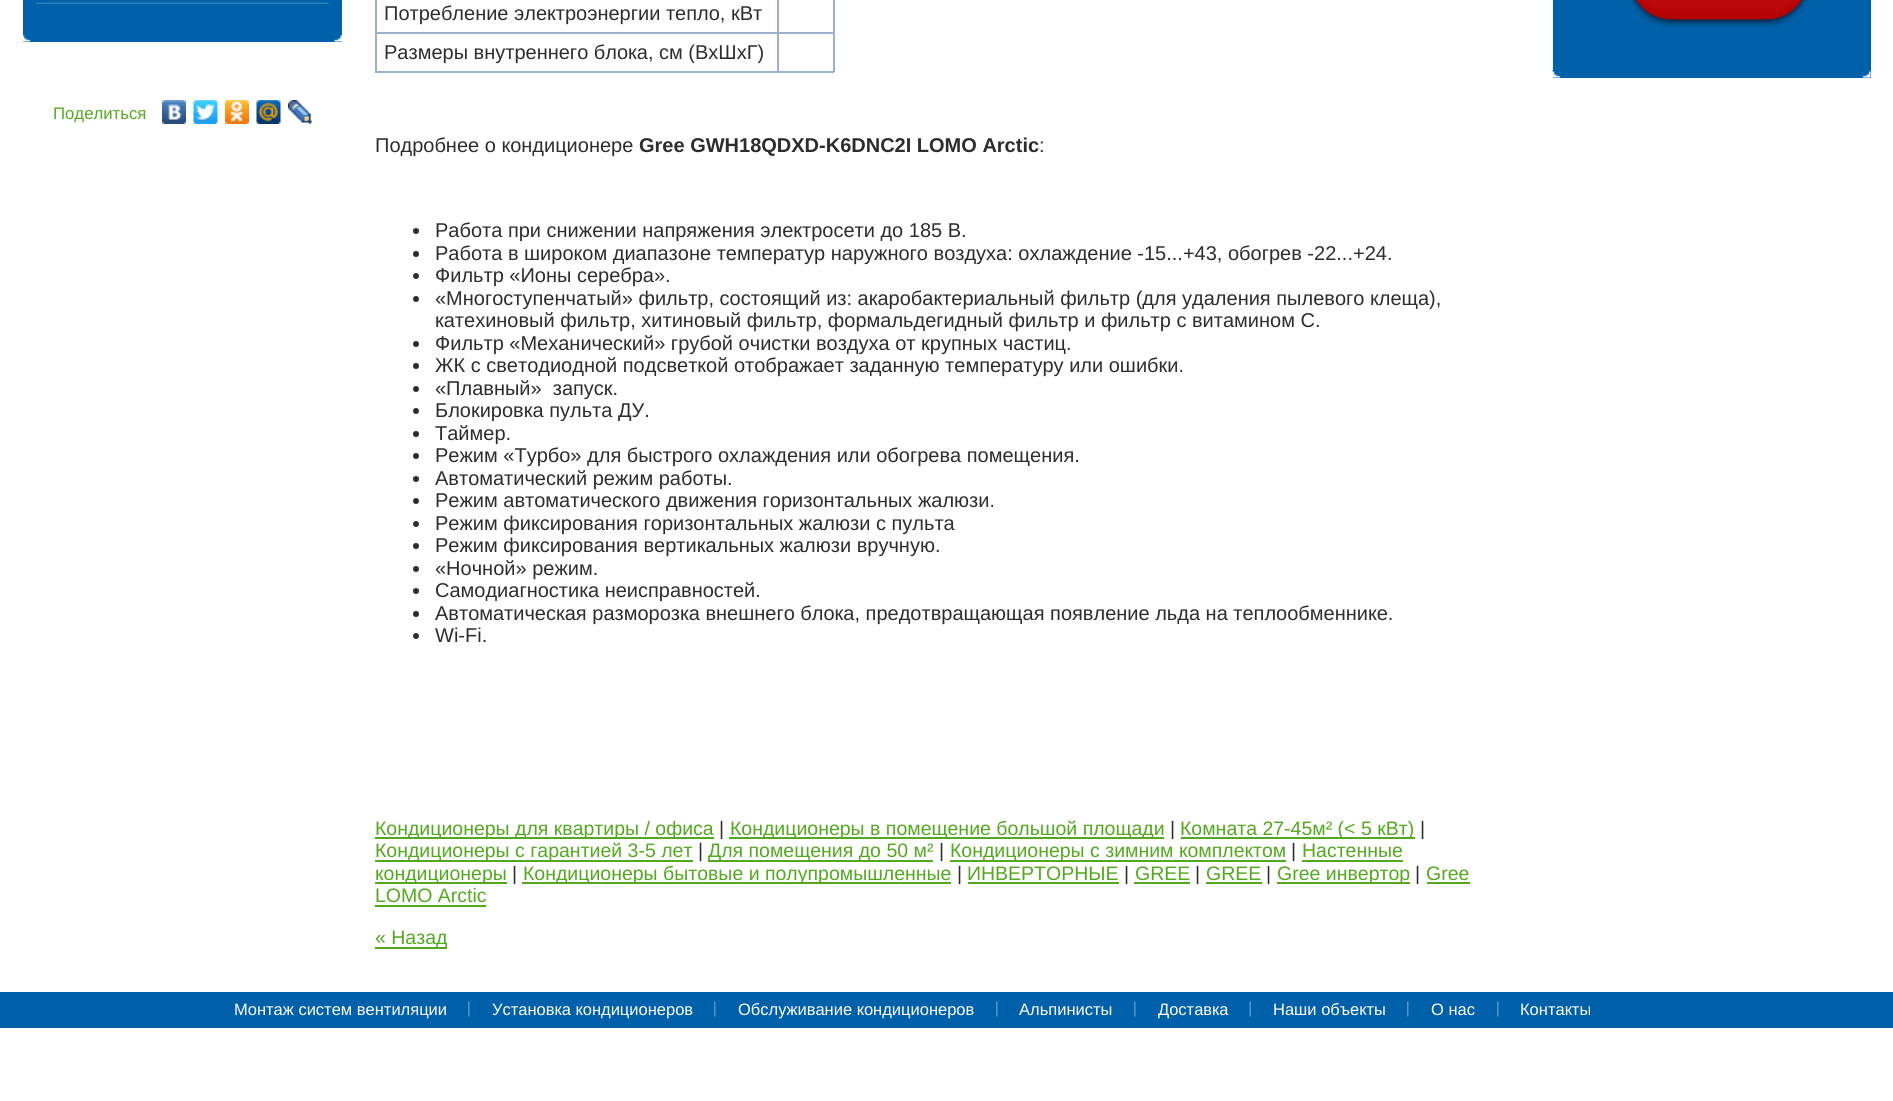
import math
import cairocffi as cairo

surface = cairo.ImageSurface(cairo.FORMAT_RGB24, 1893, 1101)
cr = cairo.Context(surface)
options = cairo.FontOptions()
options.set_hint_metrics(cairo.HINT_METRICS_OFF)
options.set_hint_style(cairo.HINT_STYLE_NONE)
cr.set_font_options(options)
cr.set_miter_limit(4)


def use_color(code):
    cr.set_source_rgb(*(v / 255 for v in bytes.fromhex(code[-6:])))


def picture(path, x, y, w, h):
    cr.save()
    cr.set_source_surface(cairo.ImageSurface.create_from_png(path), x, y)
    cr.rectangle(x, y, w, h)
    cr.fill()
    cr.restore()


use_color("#ffffff")
cr.paint()
use_color("#0060aa")
cr.rectangle(23, 0, 319, 42)
cr.fill()
picture("img1.png", 23, 35, 319, 7)
picture("img2.png", 35, 2, 294, 2)
cr.select_font_face("Liberation Sans")
cr.set_font_size(16.75)
use_color("#54a820")
cr.move_to(53, 119)
cr.show_text("Поделиться")
picture("img3.png", 162, 100, 24, 24)
picture("img4.png", 193, 100, 25, 24)
picture("img5.png", 225, 100, 24, 24)
picture("img6.png", 256, 100, 25, 24)
picture("img7.png", 288, 100, 24, 24)
cr.set_font_size(20)
use_color("#2d2d2d")
cr.move_to(384, 20)
cr.show_text("Потребление электроэнергии тепло, кВт")
use_color("#9db1cc")
cr.rectangle(777, 32, 57, 2)
cr.fill()
cr.rectangle(833, 0, 2, 72)
cr.fill()
cr.rectangle(777, 71, 57, 2)
cr.fill()
cr.rectangle(777, 32, 2, 40)
cr.fill()
cr.rectangle(375, 32, 404, 2)
cr.fill()
cr.rectangle(777, 0, 2, 33)
cr.fill()
cr.rectangle(375, 71, 404, 2)
cr.fill()
cr.rectangle(375, 0, 2, 72)
cr.fill()
use_color("#2d2d2d")
cr.move_to(384, 59)
cr.show_text("Размеры внутреннего блока, см (ВхШхГ)")
cr.move_to(375, 152)
cr.show_text("Подробнее о кондиционере")
cr.select_font_face("Liberation Sans", cairo.FONT_SLANT_NORMAL, cairo.FONT_WEIGHT_BOLD)
cr.move_to(639, 152)
cr.show_text("Gree GWH18QDXD-K6DNC2I LOMO Arctic")
cr.select_font_face("Liberation Sans")
cr.move_to(1039, 152)
cr.show_text(":")
cr.new_path()
cr.arc(416, 231, 3, 0, 2 * math.pi)
cr.fill()
cr.move_to(435, 237)
cr.show_text("Работа при снижении напряжения электросети до 185 В.")
cr.new_path()
cr.arc(416, 254, 3, 0, 2 * math.pi)
cr.fill()
cr.move_to(435, 260)
cr.show_text("Работа в широком диапазоне температур наружного воздуха: охлаждение -15...+43, обогрев -22...+24.")
cr.new_path()
cr.arc(416, 276, 3, 0, 2 * math.pi)
cr.fill()
cr.move_to(435, 282)
cr.show_text("Фильтр «Ионы серебра».")
cr.new_path()
cr.arc(416, 299, 3, 0, 2 * math.pi)
cr.fill()
cr.move_to(435, 305)
cr.show_text("«Многоступенчатый» фильтр, состоящий из: акаробактериальный фильтр (для удаления пылевого клеща),")
cr.move_to(435, 327)
cr.show_text("катехиновый фильтр, хитиновый фильтр, формальдегидный фильтр и фильтр с витамином С.")
cr.new_path()
cr.arc(416, 344, 3, 0, 2 * math.pi)
cr.fill()
cr.move_to(435, 350)
cr.show_text("Фильтр «Механический» грубой очистки воздуха от крупных частиц.")
cr.new_path()
cr.arc(416, 366, 3, 0, 2 * math.pi)
cr.fill()
cr.move_to(435, 372)
cr.show_text("ЖК с светодиодной подсветкой отображает заданную температуру или ошибки.")
cr.new_path()
cr.arc(416, 389, 3, 0, 2 * math.pi)
cr.fill()
cr.move_to(435, 395)
cr.show_text("«Плавный»  запуск.")
cr.new_path()
cr.arc(416, 411, 3, 0, 2 * math.pi)
cr.fill()
cr.move_to(435, 417)
cr.show_text("Блокировка пульта ДУ.")
cr.new_path()
cr.arc(416, 434, 3, 0, 2 * math.pi)
cr.fill()
cr.move_to(435, 440)
cr.show_text("Таймер.")
cr.new_path()
cr.arc(416, 456, 3, 0, 2 * math.pi)
cr.fill()
cr.move_to(435, 462)
cr.show_text("Режим «Турбо» для быстрого охлаждения или обогрева помещения.")
cr.new_path()
cr.arc(416, 479, 3, 0, 2 * math.pi)
cr.fill()
cr.move_to(435, 485)
cr.show_text("Автоматический режим работы.")
cr.new_path()
cr.arc(416, 501, 3, 0, 2 * math.pi)
cr.fill()
cr.move_to(435, 507)
cr.show_text("Режим автоматического движения горизонтальных жалюзи.")
cr.new_path()
cr.arc(416, 524, 3, 0, 2 * math.pi)
cr.fill()
cr.move_to(435, 530)
cr.show_text("Режим фиксирования горизонтальных жалюзи с пульта")
cr.new_path()
cr.arc(416, 546, 3, 0, 2 * math.pi)
cr.fill()
cr.move_to(435, 552)
cr.show_text("Режим фиксирования вертикальных жалюзи вручную.")
cr.new_path()
cr.arc(416, 569, 3, 0, 2 * math.pi)
cr.fill()
cr.move_to(435, 575)
cr.show_text("«Ночной» режим.")
cr.new_path()
cr.arc(416, 591, 3, 0, 2 * math.pi)
cr.fill()
cr.move_to(435, 597)
cr.show_text("Самодиагностика неисправностей.")
cr.new_path()
cr.arc(416, 614, 3, 0, 2 * math.pi)
cr.fill()
cr.move_to(435, 620)
cr.show_text("Автоматическая разморозка внешнего блока, предотвращающая появление льда на теплообменнике.")
cr.new_path()
cr.arc(416, 636, 3, 0, 2 * math.pi)
cr.fill()
cr.move_to(435, 642)
cr.show_text("Wi-Fi.")
use_color("#54a820")
cr.rectangle(375, 837, 339, 2)
cr.fill()
cr.set_font_size(19.5)
cr.move_to(375, 835)
cr.show_text("Кондиционеры для квартиры / офиса")
use_color("#2d2d2d")
cr.move_to(719, 835)
cr.show_text("|")
use_color("#54a820")
cr.rectangle(729, 837, 435, 2)
cr.fill()
cr.move_to(730, 835)
cr.show_text("Кондиционеры в помещение большой площади")
use_color("#2d2d2d")
cr.move_to(1170, 835)
cr.show_text("|")
use_color("#54a820")
cr.rectangle(1181, 837, 234, 2)
cr.fill()
cr.move_to(1180, 835)
cr.show_text("Комната 27-45м² (< 5 кВт)")
use_color("#2d2d2d")
cr.move_to(1420, 835)
cr.show_text("|")
use_color("#54a820")
cr.rectangle(375, 860, 318, 2)
cr.fill()
cr.move_to(375, 857)
cr.show_text("Кондиционеры с гарантией 3-5 лет")
use_color("#2d2d2d")
cr.move_to(698, 857)
cr.show_text("|")
use_color("#54a820")
cr.rectangle(708, 860, 225, 2)
cr.fill()
cr.move_to(708, 857)
cr.show_text("Для помещения до 50 м²")
use_color("#2d2d2d")
cr.move_to(939, 857)
cr.show_text("|")
use_color("#54a820")
cr.rectangle(950, 860, 336, 2)
cr.fill()
cr.move_to(950, 857)
cr.show_text("Кондиционеры с зимним комплектом")
use_color("#2d2d2d")
cr.move_to(1291, 857)
cr.show_text("|")
use_color("#54a820")
cr.move_to(1302, 857)
cr.show_text("Настенные")
cr.rectangle(1302, 860, 101, 2)
cr.fill()
cr.rectangle(375, 882, 132, 2)
cr.fill()
cr.move_to(375, 880)
cr.show_text("кондиционеры")
use_color("#2d2d2d")
cr.move_to(512, 880)
cr.show_text("|")
use_color("#54a820")
cr.rectangle(522, 882, 429, 2)
cr.fill()
cr.move_to(523, 880)
cr.show_text("Кондиционеры бытовые и полупромышленные")
use_color("#2d2d2d")
cr.move_to(957, 880)
cr.show_text("|")
use_color("#54a820")
cr.move_to(967, 880)
cr.show_text("ИНВЕРТОРНЫЕ")
cr.rectangle(968, 882, 151, 2)
cr.fill()
use_color("#2d2d2d")
cr.move_to(1124, 880)
cr.show_text("|")
use_color("#54a820")
cr.move_to(1135, 880)
cr.show_text("GREE")
cr.rectangle(1134, 882, 56, 2)
cr.fill()
use_color("#2d2d2d")
cr.move_to(1195, 880)
cr.show_text("|")
use_color("#54a820")
cr.move_to(1206, 880)
cr.show_text("GREE")
cr.rectangle(1206, 882, 56, 2)
cr.fill()
use_color("#2d2d2d")
cr.move_to(1266, 880)
cr.show_text("|")
use_color("#54a820")
cr.rectangle(1277, 882, 133, 2)
cr.fill()
cr.move_to(1277, 880)
cr.show_text("Gree инвертор")
use_color("#2d2d2d")
cr.move_to(1415, 880)
cr.show_text("|")
use_color("#54a820")
cr.move_to(1426, 880)
cr.show_text("Gree")
cr.rectangle(1427, 882, 43, 2)
cr.fill()
cr.move_to(375, 902)
cr.show_text("LOMO Arctic")
cr.rectangle(375, 905, 111, 2)
cr.fill()
cr.rectangle(375, 947, 72, 2)
cr.fill()
cr.move_to(375, 944)
cr.show_text("« Назад")
use_color("#0060aa")
cr.rectangle(1553, 0, 318, 78)
cr.fill()
picture("img8.png", 1552, 70, 319, 8)
picture("img9.png", 1629, 0, 180, 28)
cr.rectangle(0, 992, 1893, 36)
cr.fill()
picture("img10.png", 468, 1001, 2, 16)
cr.set_font_size(16.5)
use_color("#ffffff")
cr.move_to(234, 1015)
cr.show_text("Монтаж систем вентиляции")
picture("img10.png", 714, 1001, 2, 16)
cr.move_to(492, 1015)
cr.show_text("Установка кондиционеров")
picture("img10.png", 996, 1001, 2, 16)
cr.move_to(738, 1015)
cr.show_text("Обслуживание кондиционеров")
picture("img10.png", 1134, 1001, 2, 16)
cr.move_to(1019, 1015)
cr.show_text("Альпинисты")
picture("img11.png", 1249, 1001, 2, 16)
cr.move_to(1158, 1015)
cr.show_text("Доставка")
picture("img10.png", 1407, 1001, 2, 16)
cr.move_to(1273, 1015)
cr.show_text("Наши объекты")
picture("img10.png", 1497, 1001, 2, 16)
cr.move_to(1431, 1015)
cr.show_text("О нас")
cr.move_to(1520, 1015)
cr.show_text("Контакты")
surface.write_to_png("result.png")
